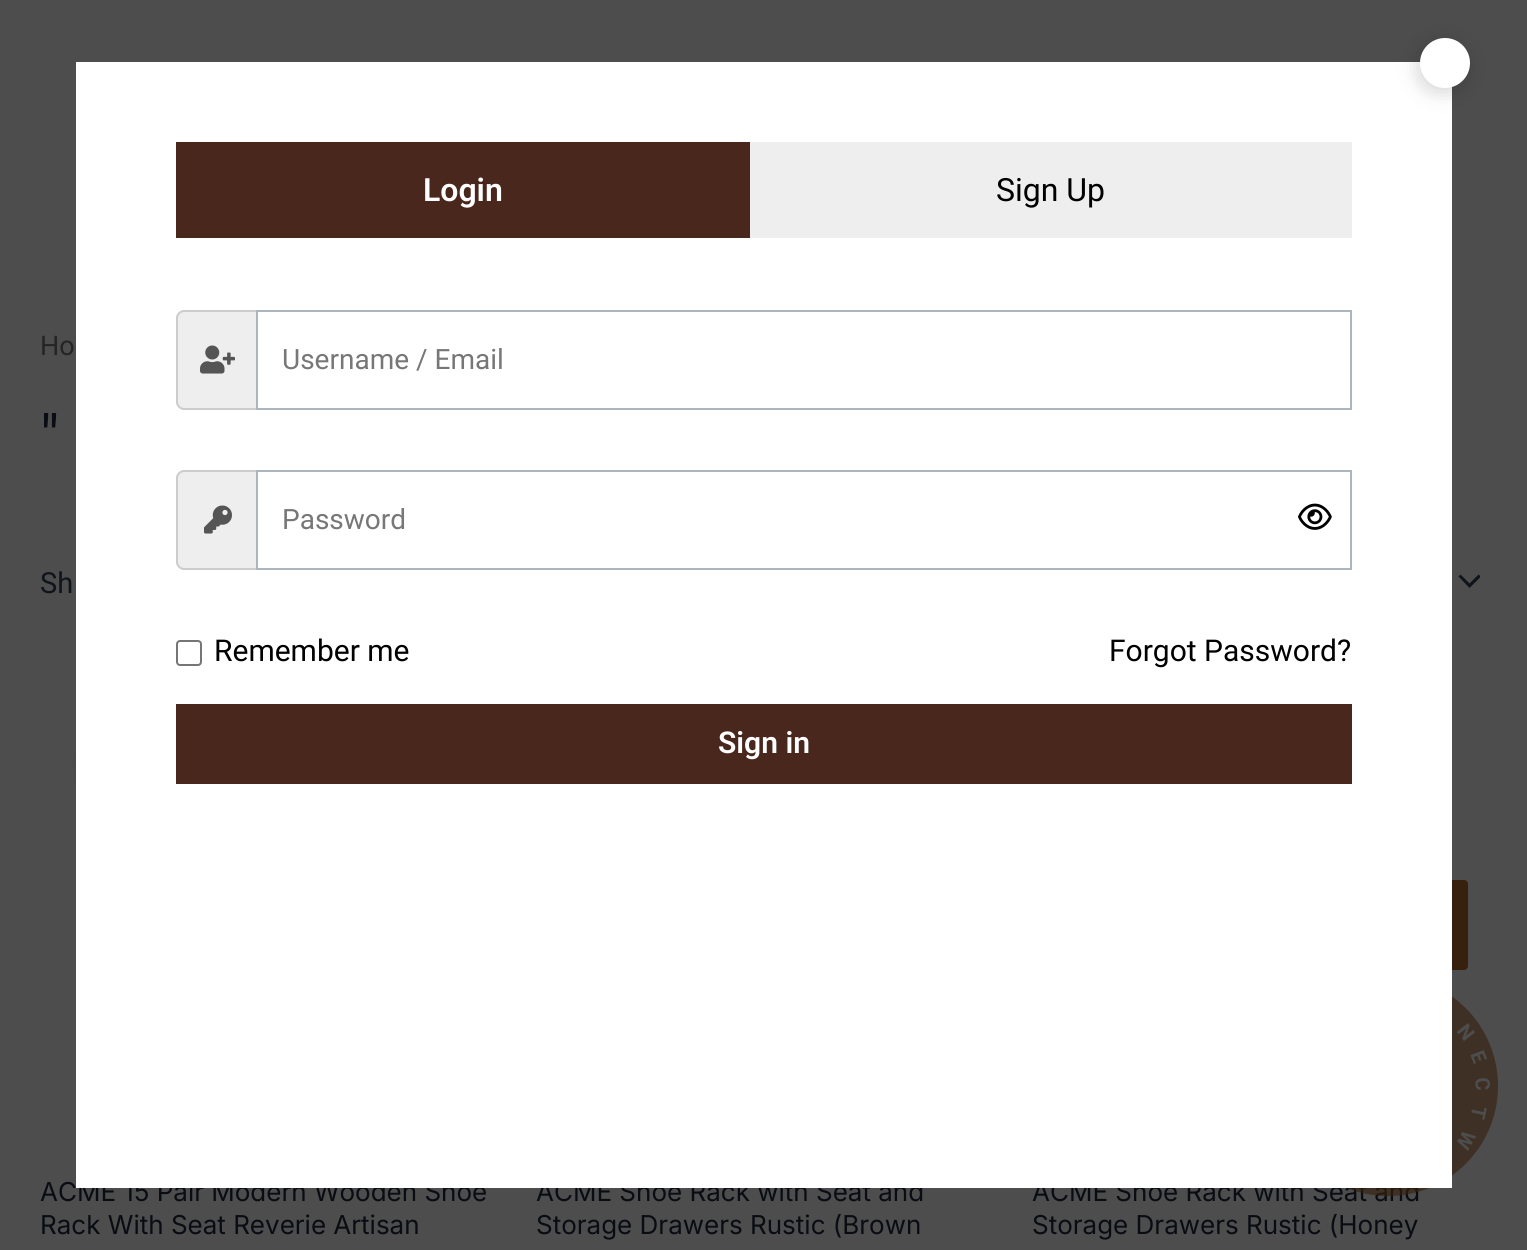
import math
import cairocffi as cairo

surface = cairo.ImageSurface(cairo.FORMAT_RGB24, 1527, 1250)
cr = cairo.Context(surface)
options = cairo.FontOptions()
options.set_hint_metrics(cairo.HINT_METRICS_OFF)
options.set_hint_style(cairo.HINT_STYLE_NONE)
cr.set_font_options(options)
cr.set_miter_limit(4)


def use_color(code):
    cr.set_source_rgb(*(v / 255 for v in bytes.fromhex(code[-6:])))


def round_rect(x, y, w, h, r):
    cr.new_sub_path()
    for i, (u, v) in enumerate([(x + w - r, y + h - r), (x + r, y + h - r), (x + r, y + r), (x + w - r, y + r)]):
        cr.arc(u, v, r, i * math.pi / 2, (i + 1) * math.pi / 2)
    cr.close_path()


def shadow(x, y, w, h, r, blur, alpha):
    cr.push_group_with_content(cairo.CONTENT_ALPHA)
    cr.set_operator(cairo.OPERATOR_SOURCE)
    for i in range(15, -16, -2):
        e = blur * i / 6
        if min(w, h) + 2 * e > 0:
            cr.set_source_rgba(0, 0, 0, alpha * math.erfc((i - 1) / 8.5) / 2)
            round_rect(x - e, y - e, w + 2 * e, h + 2 * e, max(0, min(r + e + blur * .6, min(w, h) / 2 + e)))
            cr.fill()
    cr.mask(cr.pop_group())


def picture(path, x, y, w, h):
    cr.save()
    cr.set_source_surface(cairo.ImageSurface.create_from_png(path), x, y)
    cr.rectangle(x, y, w, h)
    cr.fill()
    cr.restore()


use_color("#4d4d4d")
cr.paint()
use_color("#000000")
shadow(78, 742, 96, 50, 25, 4, 0.15)
cr.select_font_face("Inter")
cr.set_font_size(26)
use_color("#090c12")
cr.move_to(40, 1201)
cr.show_text("ACME 15 Pair Modern Wooden Shoe")
cr.move_to(536, 1201)
cr.show_text("ACME Shoe Rack with Seat and")
cr.move_to(1032, 1201)
cr.show_text("ACME Shoe Rack with Seat and")
use_color("#37200e")
round_rect(1378, 880, 90, 90, 4)
cr.fill()
cr.set_source_rgba(0.216, 0.125, 0.055, 0.63)
cr.arc(1388, 1086, 110, 0, 2 * math.pi)
cr.fill()
use_color("#ffffff")
cr.rectangle(76, 62, 1376, 1126)
cr.fill()
use_color("#000000")
shadow(1418, 42, 50, 50, 25, 10, 0.17)
use_color("#ffffff")
cr.arc(1445, 63, 25, 0, 2 * math.pi)
cr.fill()
use_color("#49271c")
cr.rectangle(176, 142, 574, 96)
cr.fill()
cr.select_font_face("Roboto SemiBold")
cr.set_font_size(32)
use_color("#ffffff")
cr.move_to(423, 201)
cr.show_text("Login")
use_color("#eeeeee")
cr.rectangle(750, 142, 602, 96)
cr.fill()
cr.select_font_face("Roboto")
use_color("#000000")
cr.move_to(996, 201)
cr.show_text("Sign Up")
use_color("#eeeeee")
cr.new_path()
cr.move_to(184, 310)
cr.line_to(256, 310)
cr.line_to(256, 410)
cr.line_to(184, 410)
cr.curve_to(179.5, 410, 176, 406.5, 176, 402)
cr.line_to(176, 318)
cr.curve_to(176, 313.5, 179.5, 310, 184, 310)
cr.close_path()
cr.fill()
use_color("#cccccc")
cr.set_fill_rule(cairo.FILL_RULE_EVEN_ODD)
cr.new_path()
cr.move_to(184, 310)
cr.line_to(256, 310)
cr.line_to(256, 410)
cr.line_to(184, 410)
cr.curve_to(180, 410, 176, 406, 176, 402)
cr.line_to(176, 318)
cr.curve_to(176, 314, 180, 310, 184, 310)
cr.close_path()
cr.move_to(184, 312)
cr.line_to(256, 312)
cr.line_to(256, 408)
cr.line_to(184, 408)
cr.curve_to(181, 408, 178, 405, 178, 402)
cr.line_to(178, 318)
cr.curve_to(178, 315, 181, 312, 184, 312)
cr.close_path()
cr.fill()
picture("img1.png", 200, 345, 35, 29)
cr.rectangle(257, 311, 1094, 98)
use_color("#adb6be")
cr.stroke()
cr.set_font_size(28)
use_color("#777777")
cr.move_to(282, 369)
cr.show_text("Username / Email")
use_color("#eeeeee")
cr.new_path()
cr.move_to(184, 470)
cr.line_to(256, 470)
cr.line_to(256, 570)
cr.line_to(184, 570)
cr.curve_to(179.5, 570, 176, 566.5, 176, 562)
cr.line_to(176, 478)
cr.curve_to(176, 473.5, 179.5, 470, 184, 470)
cr.close_path()
cr.fill()
use_color("#cccccc")
cr.new_path()
cr.move_to(184, 470)
cr.line_to(256, 470)
cr.line_to(256, 570)
cr.line_to(184, 570)
cr.curve_to(180, 570, 176, 566, 176, 562)
cr.line_to(176, 478)
cr.curve_to(176, 474, 180, 470, 184, 470)
cr.close_path()
cr.move_to(184, 472)
cr.line_to(256, 472)
cr.line_to(256, 568)
cr.line_to(184, 568)
cr.curve_to(181, 568, 178, 565, 178, 562)
cr.line_to(178, 478)
cr.curve_to(178, 475, 181, 472, 184, 472)
cr.close_path()
cr.fill()
picture("img2.png", 204, 505, 28, 29)
cr.rectangle(257, 471, 1094, 98)
use_color("#adb6be")
cr.stroke()
use_color("#777777")
cr.move_to(282, 529)
cr.show_text("Password")
picture("img3.png", 1298, 503, 34, 27)
round_rect(177, 641, 24, 24, 3)
use_color("#767676")
cr.stroke()
cr.set_font_size(30)
use_color("#000000")
cr.move_to(214, 661)
cr.show_text("Remember me")
cr.move_to(1109, 661)
cr.show_text("Forgot Password?")
use_color("#49271c")
cr.rectangle(176, 704, 1176, 80)
cr.fill()
cr.select_font_face("Roboto SemiBold")
use_color("#ffffff")
cr.move_to(718, 753)
cr.show_text("Sign in")
cr.select_font_face("Roboto")
cr.set_font_size(27)
use_color("#242424")
cr.move_to(40, 355)
cr.show_text("Ho")
cr.set_font_size(60)
use_color("#090c12")
cr.move_to(40, 458)
cr.show_text("\"")
cr.set_font_size(29)
use_color("#0f141a")
cr.move_to(40, 593)
cr.show_text("Sh")
cr.save()
cr.set_fill_rule(cairo.FILL_RULE_WINDING)
cr.rectangle(1458, 574, 22, 14)
cr.clip()
cr.new_path()
cr.move_to(1458.5, 576.5)
cr.line_to(1469.5, 588)
cr.line_to(1481, 576.5)
cr.line_to(1478.5, 574.5)
cr.line_to(1469.5, 583.5)
cr.line_to(1460.5, 574.5)
cr.close_path()
cr.fill()
cr.restore()
cr.select_font_face("Inter")
cr.set_font_size(26)
use_color("#090c12")
cr.move_to(40, 1234)
cr.show_text("Rack With Seat Reverie Artisan")
cr.move_to(536, 1234)
cr.show_text("Storage Drawers Rustic (Brown")
cr.move_to(1032, 1234)
cr.show_text("Storage Drawers Rustic (Honey")
cr.select_font_face("Roboto", cairo.FONT_SLANT_NORMAL, cairo.FONT_WEIGHT_BOLD)
cr.set_font_size(20)
use_color("#4d4d4d")
cr.save()
cr.translate(1456, 1031)
cr.rotate(51.6 * math.pi / 180)
cr.move_to(0, 0)
cr.show_text("N")
cr.restore()
cr.save()
cr.translate(1470, 1054)
cr.rotate(68.8 * math.pi / 180)
cr.move_to(0, 0)
cr.show_text("E")
cr.restore()
cr.save()
cr.translate(1475, 1078)
cr.rotate(85 * math.pi / 180)
cr.move_to(0, 0)
cr.show_text("C")
cr.restore()
cr.save()
cr.translate(1473, 1105)
cr.rotate(102.2 * math.pi / 180)
cr.move_to(0, 0)
cr.show_text("T")
cr.restore()
cr.save()
cr.translate(1464, 1129)
cr.rotate(119.4 * math.pi / 180)
cr.move_to(0, 0)
cr.show_text("W")
cr.restore()
surface.write_to_png("result.png")
